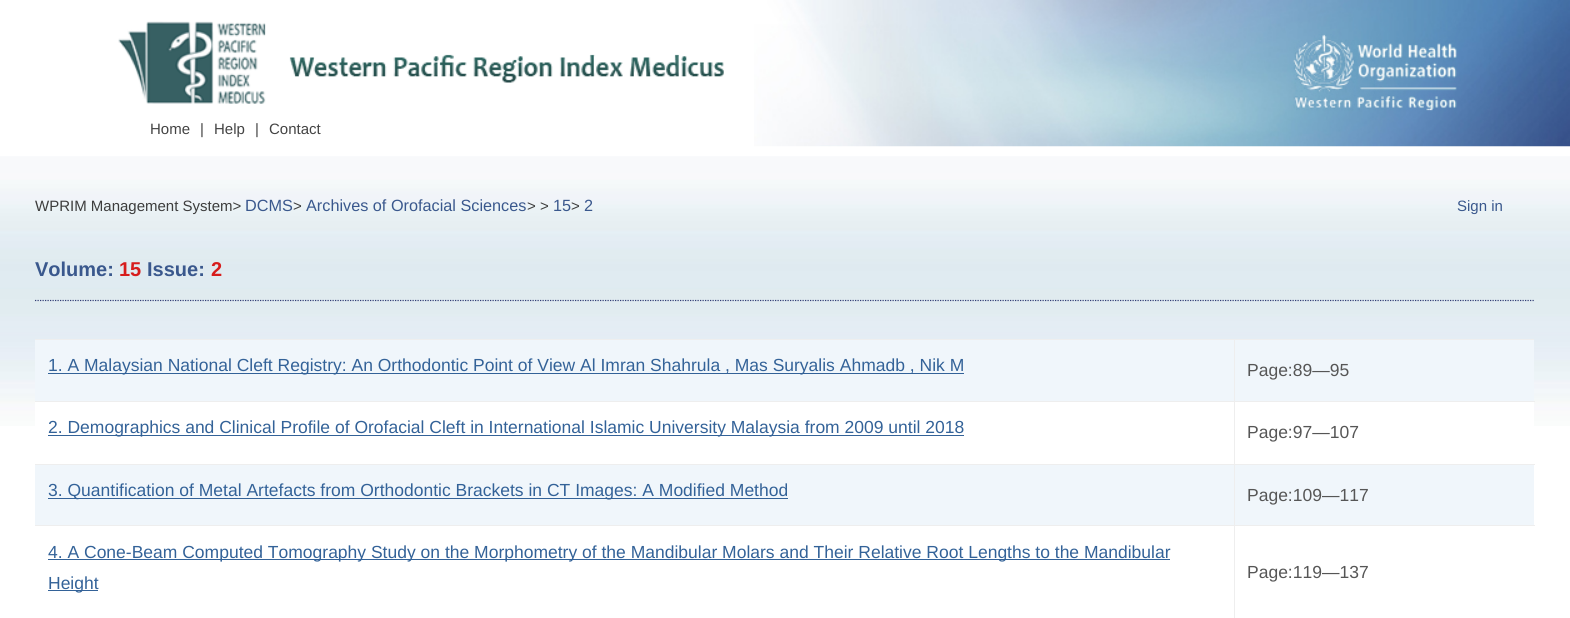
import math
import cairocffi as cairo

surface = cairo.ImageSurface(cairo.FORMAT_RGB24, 1570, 618)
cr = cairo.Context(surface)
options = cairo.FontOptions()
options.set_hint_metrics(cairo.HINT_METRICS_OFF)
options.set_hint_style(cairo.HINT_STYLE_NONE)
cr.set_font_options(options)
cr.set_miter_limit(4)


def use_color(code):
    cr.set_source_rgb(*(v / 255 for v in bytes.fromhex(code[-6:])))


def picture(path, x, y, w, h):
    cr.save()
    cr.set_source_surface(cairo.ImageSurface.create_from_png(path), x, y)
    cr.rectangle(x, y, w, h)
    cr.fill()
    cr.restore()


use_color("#ffffff")
cr.paint()
picture("img1.png", 754, 0, 816, 147)
picture("img2.png", 118, 21, 606, 83)
cr.select_font_face("Liberation Sans")
cr.set_font_size(15)
use_color("#444444")
cr.move_to(150, 134)
cr.show_text("Home")
cr.move_to(200, 134)
cr.show_text("|")
cr.move_to(214, 134)
cr.show_text("Help")
cr.move_to(255, 134)
cr.show_text("|")
cr.move_to(269, 134)
cr.show_text("Contact")
picture("img3.png", 1293, 34, 164, 77)
picture("img4.png", 0, 156, 1570, 270)
use_color("#3a588d")
cr.move_to(1457, 211)
cr.show_text("Sign in")
use_color("#3d3d3d")
cr.move_to(35, 211)
cr.show_text("WPRIM Management System>")
cr.set_font_size(16.25)
use_color("#3a588d")
cr.move_to(245, 211)
cr.show_text("DCMS")
cr.set_font_size(15)
use_color("#3d3d3d")
cr.move_to(293, 211)
cr.show_text(">")
cr.set_font_size(16.25)
use_color("#3a588d")
cr.move_to(306, 211)
cr.show_text("Archives of Orofacial Sciences")
cr.set_font_size(15)
use_color("#3d3d3d")
cr.move_to(527, 211)
cr.show_text("> >")
cr.set_font_size(16.25)
use_color("#3a588d")
cr.move_to(553, 211)
cr.show_text("15")
cr.set_font_size(15)
use_color("#3d3d3d")
cr.move_to(571, 211)
cr.show_text(">")
cr.set_font_size(16.25)
use_color("#3a588d")
cr.move_to(584, 211)
cr.show_text("2")
cr.select_font_face("Liberation Sans", cairo.FONT_SLANT_NORMAL, cairo.FONT_WEIGHT_BOLD)
cr.set_font_size(20)
cr.move_to(35, 276)
cr.show_text("Volume:")
use_color("#d71d1d")
cr.move_to(119, 276)
cr.show_text("15")
use_color("#3a588d")
cr.move_to(147, 276)
cr.show_text("Issue:")
use_color("#d71d1d")
cr.move_to(211, 276)
cr.show_text("2")
cr.new_path()
cr.move_to(35, 300.5)
cr.line_to(1535, 300.5)
use_color("#313d75")
cr.set_line_width(1.2)
cr.set_dash([1.25, 1.25])
cr.stroke()
use_color("#eeeeee")
cr.rectangle(35, 339, 1499, 1)
cr.fill()
use_color("#f0f6fb")
cr.rectangle(35, 340, 1499, 61)
cr.fill()
use_color("#ffffff")
cr.rectangle(35, 402, 1499, 24)
cr.fill()
use_color("#f0f6fb")
cr.rectangle(35, 465, 1499, 60)
cr.fill()
use_color("#eeeeee")
cr.rectangle(1234, 525, 1, 93)
cr.fill()
cr.rectangle(1234, 525, 301, 1)
cr.fill()
cr.rectangle(1234, 464, 1, 62)
cr.fill()
cr.rectangle(1234, 464, 301, 1)
cr.fill()
cr.rectangle(1234, 401, 1, 64)
cr.fill()
cr.rectangle(1234, 401, 301, 1)
cr.fill()
cr.rectangle(1234, 339, 1, 64)
cr.fill()
cr.rectangle(35, 401, 1200, 1)
cr.fill()
use_color("#336298")
cr.rectangle(48, 373, 916, 1)
cr.fill()
cr.select_font_face("Liberation Sans")
cr.set_font_size(17.5)
cr.move_to(48, 371)
cr.show_text("1. A Malaysian National Cleft Registry: An Orthodontic Point of View Al Imran Shahrula , Mas Suryalis Ahmadb , Nik M")
use_color("#565656")
cr.move_to(1247, 376)
cr.show_text("Page:89—95")
use_color("#eeeeee")
cr.rectangle(35, 464, 1200, 1)
cr.fill()
use_color("#336298")
cr.rectangle(48, 435, 916, 1)
cr.fill()
cr.move_to(48, 433)
cr.show_text("2. Demographics and Clinical Profile of Orofacial Cleft in International Islamic University Malaysia from 2009 until 2018")
use_color("#565656")
cr.move_to(1247, 438)
cr.show_text("Page:97—107")
use_color("#eeeeee")
cr.rectangle(35, 525, 1200, 1)
cr.fill()
use_color("#336298")
cr.rectangle(48, 498, 740, 1)
cr.fill()
cr.move_to(48, 496)
cr.show_text("3. Quantification of Metal Artefacts from Orthodontic Brackets in CT Images: A Modified Method")
use_color("#565656")
cr.move_to(1247, 501)
cr.show_text("Page:109—117")
use_color("#336298")
cr.rectangle(48, 559, 1122, 1)
cr.fill()
cr.move_to(48, 558)
cr.show_text("4. A Cone-Beam Computed Tomography Study on the Morphometry of the Mandibular Molars and Their Relative Root Lengths to the Mandibular")
cr.rectangle(48, 590, 50, 1)
cr.fill()
cr.move_to(48, 589)
cr.show_text("Height")
use_color("#565656")
cr.move_to(1247, 578)
cr.show_text("Page:119—137")
surface.write_to_png("result.png")
